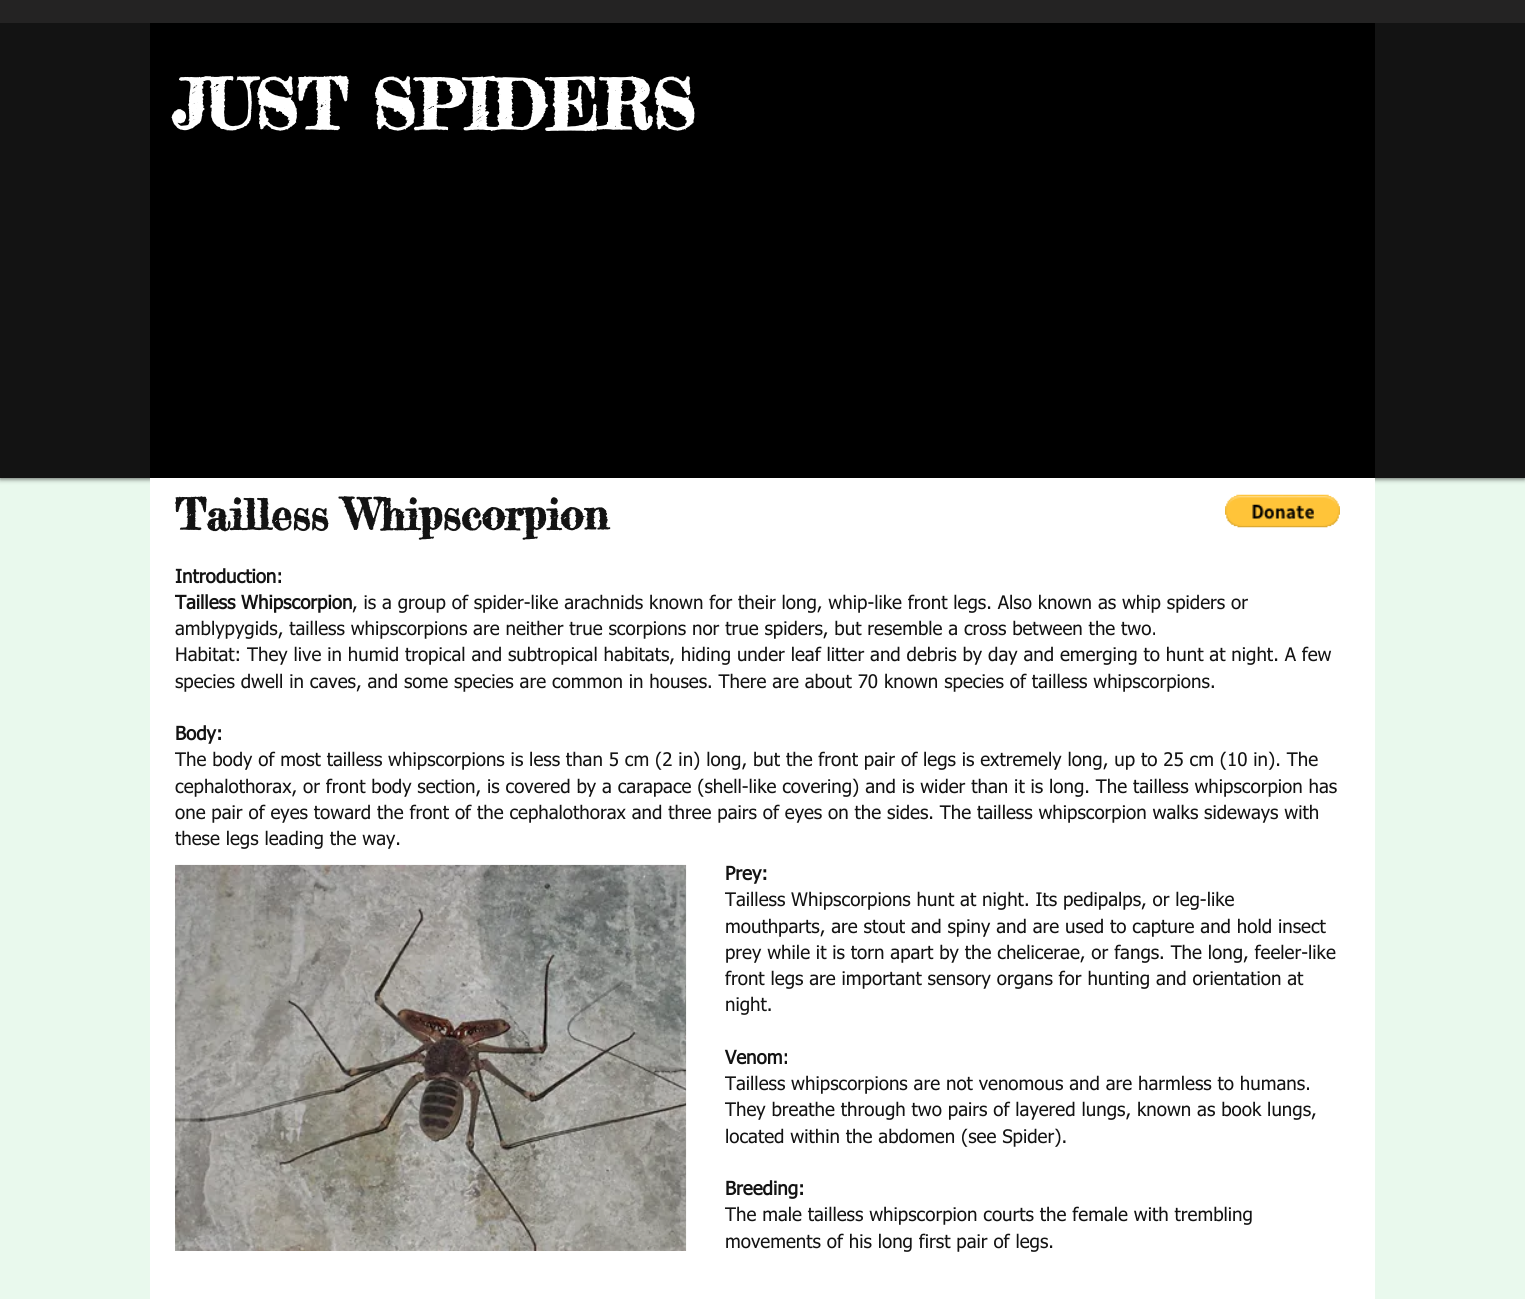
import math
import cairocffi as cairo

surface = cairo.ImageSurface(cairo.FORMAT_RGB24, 1525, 1299)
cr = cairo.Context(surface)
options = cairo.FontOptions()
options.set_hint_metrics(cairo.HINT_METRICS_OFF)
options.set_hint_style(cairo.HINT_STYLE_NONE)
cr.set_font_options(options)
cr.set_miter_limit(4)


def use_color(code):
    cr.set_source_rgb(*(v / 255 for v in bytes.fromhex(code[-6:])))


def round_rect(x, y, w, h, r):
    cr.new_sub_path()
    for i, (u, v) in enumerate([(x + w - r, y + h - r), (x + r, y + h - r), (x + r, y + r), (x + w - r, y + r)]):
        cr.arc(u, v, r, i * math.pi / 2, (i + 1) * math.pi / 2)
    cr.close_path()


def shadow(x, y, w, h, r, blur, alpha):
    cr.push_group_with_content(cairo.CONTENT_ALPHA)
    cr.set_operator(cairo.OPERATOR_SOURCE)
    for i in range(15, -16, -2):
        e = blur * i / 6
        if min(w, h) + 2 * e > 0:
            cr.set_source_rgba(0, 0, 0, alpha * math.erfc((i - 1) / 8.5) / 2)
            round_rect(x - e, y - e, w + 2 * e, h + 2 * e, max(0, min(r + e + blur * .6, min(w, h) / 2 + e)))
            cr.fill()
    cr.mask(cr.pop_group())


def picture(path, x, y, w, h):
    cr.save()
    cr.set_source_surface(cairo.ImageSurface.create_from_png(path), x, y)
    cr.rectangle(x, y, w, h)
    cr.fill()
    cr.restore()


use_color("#e9f9ed")
cr.paint()
use_color("#000000")
shadow(0, -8, 1525, 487, 0, 2.5, 0.6)
use_color("#131313")
cr.rectangle(0, 23, 1525, 455)
cr.fill()
use_color("#000000")
cr.rectangle(150, 23, 1225, 455)
cr.fill()
use_color("#242323")
cr.rectangle(0, 0, 1525, 23)
cr.fill()
cr.select_font_face("Fredericka the Great", cairo.FONT_SLANT_NORMAL, cairo.FONT_WEIGHT_BOLD)
cr.set_font_size(68.75)
use_color("#ffffff")
cr.move_to(172, 130)
cr.show_text("JUST SPIDERS")
cr.rectangle(150, 478, 1225, 821)
cr.fill()
picture("img1.png", 1225, 494, 115, 34)
cr.set_font_size(42.5)
use_color("#131313")
cr.move_to(175, 530)
cr.show_text("Tailless Whipscorpion")
cr.select_font_face("tahoma", cairo.FONT_SLANT_NORMAL, cairo.FONT_WEIGHT_BOLD)
cr.set_font_size(18.75)
cr.move_to(175, 583)
cr.show_text("Introduction:")
cr.move_to(175, 609)
cr.show_text("Tailless Whipscorpion")
cr.select_font_face("tahoma")
cr.move_to(352, 609)
cr.show_text(", is a group of spider-like arachnids known for their long, whip-like front legs. Also known as whip spiders or")
cr.move_to(175, 635)
cr.show_text("amblypygids, tailless whipscorpions are neither true scorpions nor true spiders, but resemble a cross between the two.")
cr.move_to(175, 661)
cr.show_text("Habitat: They live in humid tropical and subtropical habitats, hiding under leaf litter and debris by day and emerging to hunt at night. A few")
cr.move_to(175, 688)
cr.show_text("species dwell in caves, and some species are common in houses. There are about 70 known species of tailless whipscorpions.")
cr.select_font_face("tahoma", cairo.FONT_SLANT_NORMAL, cairo.FONT_WEIGHT_BOLD)
cr.move_to(175, 740)
cr.show_text("Body:")
cr.select_font_face("tahoma")
cr.move_to(175, 766)
cr.show_text("The body of most tailless whipscorpions is less than 5 cm (2 in) long, but the front pair of legs is extremely long, up to 25 cm (10 in). The")
cr.move_to(175, 793)
cr.show_text("cephalothorax, or front body section, is covered by a carapace (shell-like covering) and is wider than it is long. The tailless whipscorpion has")
cr.move_to(175, 819)
cr.show_text("one pair of eyes toward the front of the cephalothorax and three pairs of eyes on the sides. The tailless whipscorpion walks sideways with")
cr.move_to(175, 845)
cr.show_text("these legs leading the way.")
picture("img2.png", 175, 864, 512, 387)
cr.select_font_face("tahoma", cairo.FONT_SLANT_NORMAL, cairo.FONT_WEIGHT_BOLD)
cr.move_to(725, 880)
cr.show_text("Prey:")
cr.select_font_face("tahoma")
cr.move_to(725, 906)
cr.show_text("Tailless Whipscorpions hunt at night. Its pedipalps, or leg-like")
cr.move_to(725, 933)
cr.show_text("mouthparts, are stout and spiny and are used to capture and hold insect")
cr.move_to(725, 959)
cr.show_text("prey while it is torn apart by the chelicerae, or fangs. The long, feeler-like")
cr.move_to(725, 985)
cr.show_text("front legs are important sensory organs for hunting and orientation at")
cr.move_to(725, 1011)
cr.show_text("night.")
cr.select_font_face("tahoma", cairo.FONT_SLANT_NORMAL, cairo.FONT_WEIGHT_BOLD)
cr.move_to(725, 1064)
cr.show_text("Venom:")
cr.select_font_face("tahoma")
cr.move_to(725, 1090)
cr.show_text("Tailless whipscorpions are not venomous and are harmless to humans.")
cr.move_to(725, 1116)
cr.show_text("They breathe through two pairs of layered lungs, known as book lungs,")
cr.move_to(725, 1143)
cr.show_text("located within the abdomen (see Spider).")
cr.select_font_face("tahoma", cairo.FONT_SLANT_NORMAL, cairo.FONT_WEIGHT_BOLD)
cr.move_to(725, 1195)
cr.show_text("Breeding:")
cr.select_font_face("tahoma")
cr.move_to(725, 1221)
cr.show_text("The male tailless whipscorpion courts the female with trembling")
cr.move_to(725, 1248)
cr.show_text("movements of his long first pair of legs.")
surface.write_to_png("result.png")
